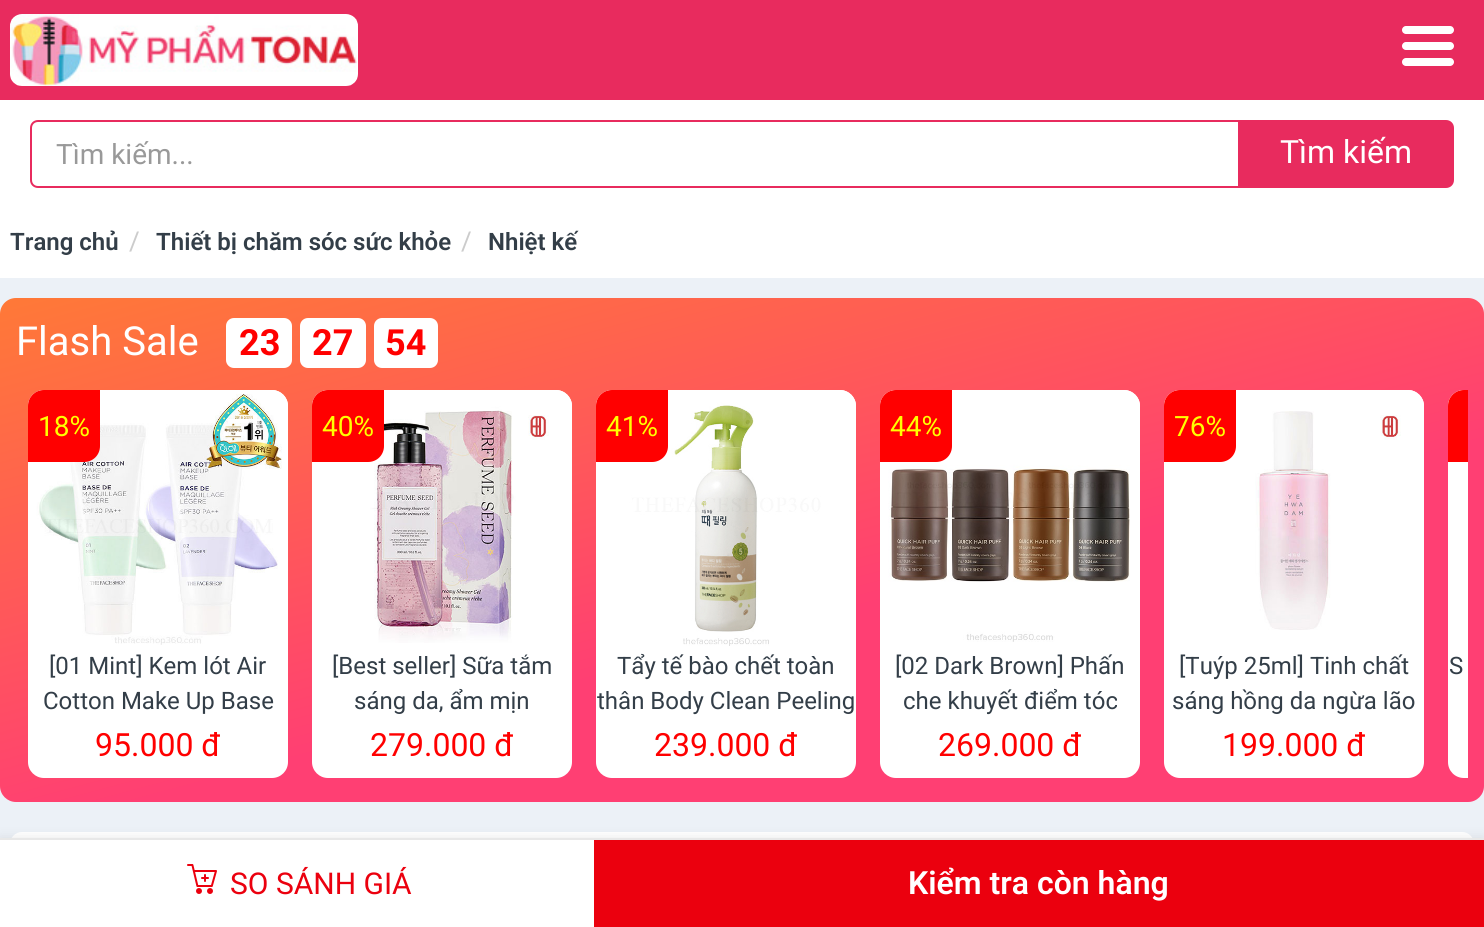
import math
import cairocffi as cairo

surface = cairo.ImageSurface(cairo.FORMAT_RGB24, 1484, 927)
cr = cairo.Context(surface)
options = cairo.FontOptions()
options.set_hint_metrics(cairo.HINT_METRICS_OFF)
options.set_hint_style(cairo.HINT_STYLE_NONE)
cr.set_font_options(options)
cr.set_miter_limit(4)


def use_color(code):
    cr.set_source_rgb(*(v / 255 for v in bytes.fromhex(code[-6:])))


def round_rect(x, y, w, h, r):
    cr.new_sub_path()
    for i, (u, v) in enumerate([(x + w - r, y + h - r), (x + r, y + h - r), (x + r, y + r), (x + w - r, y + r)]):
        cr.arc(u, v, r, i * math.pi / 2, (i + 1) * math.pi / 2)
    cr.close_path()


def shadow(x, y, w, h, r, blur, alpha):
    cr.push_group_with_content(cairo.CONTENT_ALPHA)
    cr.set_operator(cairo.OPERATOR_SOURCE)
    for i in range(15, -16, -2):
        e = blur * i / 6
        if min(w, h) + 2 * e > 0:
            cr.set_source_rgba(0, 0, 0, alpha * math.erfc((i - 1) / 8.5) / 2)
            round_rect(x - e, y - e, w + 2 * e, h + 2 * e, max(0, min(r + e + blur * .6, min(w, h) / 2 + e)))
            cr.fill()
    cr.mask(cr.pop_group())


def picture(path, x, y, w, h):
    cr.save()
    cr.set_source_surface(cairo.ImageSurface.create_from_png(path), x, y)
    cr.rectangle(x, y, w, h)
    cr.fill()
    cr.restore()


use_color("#ffffff")
cr.paint()
use_color("#e82b5e")
cr.rectangle(0, 0, 1484, 100)
cr.fill()
picture("img1.png", 10, 14, 348, 72)
use_color("#ffffff")
round_rect(1402, 26, 52, 8, 4)
cr.fill()
round_rect(1402, 42, 52, 8, 4)
cr.fill()
round_rect(1402, 58, 52, 8, 4)
cr.fill()
cr.new_path()
cr.move_to(38, 121)
cr.line_to(1239, 121)
cr.line_to(1239, 187)
cr.line_to(38, 187)
cr.curve_to(34, 187, 31, 184, 31, 180)
cr.line_to(31, 128)
cr.curve_to(31, 124, 34, 121, 38, 121)
cr.close_path()
use_color("#e82b5e")
cr.stroke()
cr.select_font_face("Roboto")
cr.set_font_size(28)
use_color("#999999")
cr.move_to(56, 164)
cr.show_text("Tìm kiếm...")
use_color("#e82b5e")
cr.new_path()
cr.move_to(1239, 121)
cr.line_to(1446, 121)
cr.curve_to(1450, 121, 1453, 124, 1453, 128)
cr.line_to(1453, 180)
cr.curve_to(1453, 184, 1450, 187, 1446, 187)
cr.line_to(1239, 187)
cr.close_path()
cr.fill_preserve()
cr.stroke()
cr.set_font_size(32)
use_color("#ffffff")
cr.move_to(1280, 163)
cr.show_text("Tìm kiếm")
cr.select_font_face("Roboto SemiBold")
cr.set_font_size(24)
use_color("#333e48")
cr.move_to(10, 250)
cr.show_text("Trang chủ")
cr.select_font_face("Roboto")
cr.set_font_size(26)
use_color("#cccccc")
cr.move_to(129, 250)
cr.show_text("/")
cr.select_font_face("Roboto SemiBold")
cr.set_font_size(24)
use_color("#333e48")
cr.move_to(156, 250)
cr.show_text("Thiết bị chăm sóc sức khỏe")
cr.select_font_face("Roboto")
cr.set_font_size(26)
use_color("#cccccc")
cr.move_to(461, 250)
cr.show_text("/")
cr.select_font_face("Roboto SemiBold")
cr.set_font_size(24)
use_color("#333e48")
cr.move_to(488, 250)
cr.show_text("Nhiệt kế")
use_color("#ecf1f7")
cr.rectangle(0, 278, 1484, 560)
cr.fill()
gradient = cairo.LinearGradient(629, 129, 855, 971)
gradient.add_color_stop_rgba(0, 1, 0.475, 0.216, 1)
gradient.add_color_stop_rgba(0.6, 1, 0.247, 0.451, 1)
cr.set_source(gradient)
round_rect(0, 298, 1484, 504, 16)
cr.fill()
cr.select_font_face("Roboto")
cr.set_font_size(40)
use_color("#ffffff")
cr.move_to(16, 355)
cr.show_text("Flash Sale")
round_rect(226, 318, 66, 50, 8)
cr.fill()
cr.select_font_face("Roboto", cairo.FONT_SLANT_NORMAL, cairo.FONT_WEIGHT_BOLD)
cr.set_font_size(36)
use_color("#ff0000")
cr.move_to(239, 355)
cr.show_text("23")
use_color("#ffffff")
round_rect(300, 318, 66, 50, 8)
cr.fill()
use_color("#ff0000")
cr.move_to(312, 355)
cr.show_text("27")
use_color("#ffffff")
round_rect(374, 318, 64, 50, 8)
cr.fill()
use_color("#ff0000")
cr.move_to(385, 355)
cr.show_text("54")
use_color("#ffffff")
round_rect(28, 390, 260, 388, 16)
cr.fill()
picture("img2.png", 28, 390, 260, 255)
use_color("#ff0000")
cr.new_path()
cr.move_to(44, 390)
cr.line_to(100, 390)
cr.line_to(100, 446)
cr.curve_to(100, 455, 93, 462, 84, 462)
cr.line_to(28, 462)
cr.line_to(28, 406)
cr.curve_to(28, 397, 35, 390, 44, 390)
cr.close_path()
cr.fill()
cr.select_font_face("Roboto")
cr.set_font_size(28)
use_color("#ffff00")
cr.move_to(38, 436)
cr.show_text("18%")
cr.set_font_size(24)
use_color("#333e48")
cr.move_to(49, 674)
cr.show_text("[01 Mint] Kem lót Air")
cr.move_to(43, 709)
cr.show_text("Cotton Make Up Base")
cr.set_font_size(32)
use_color("#ff0000")
cr.move_to(95, 756)
cr.show_text("95.000 đ")
use_color("#ffffff")
round_rect(312, 390, 260, 388, 16)
cr.fill()
picture("img3.png", 312, 390, 260, 253)
use_color("#ff0000")
cr.new_path()
cr.move_to(328, 390)
cr.line_to(384, 390)
cr.line_to(384, 446)
cr.curve_to(384, 455, 377, 462, 368, 462)
cr.line_to(312, 462)
cr.line_to(312, 406)
cr.curve_to(312, 397, 319, 390, 328, 390)
cr.close_path()
cr.fill()
cr.set_font_size(28)
use_color("#ffff00")
cr.move_to(322, 436)
cr.show_text("40%")
cr.set_font_size(24)
use_color("#333e48")
cr.move_to(332, 674)
cr.show_text("[Best seller] Sữa tắm")
cr.move_to(354, 709)
cr.show_text("sáng da, ẩm mịn")
cr.set_font_size(32)
use_color("#ff0000")
cr.move_to(370, 756)
cr.show_text("279.000 đ")
use_color("#ffffff")
round_rect(596, 390, 260, 388, 16)
cr.fill()
picture("img4.png", 596, 390, 260, 256)
use_color("#ff0000")
cr.new_path()
cr.move_to(612, 390)
cr.line_to(668, 390)
cr.line_to(668, 446)
cr.curve_to(668, 455, 661, 462, 652, 462)
cr.line_to(596, 462)
cr.line_to(596, 406)
cr.curve_to(596, 397, 603, 390, 612, 390)
cr.close_path()
cr.fill()
cr.set_font_size(28)
use_color("#ffff00")
cr.move_to(606, 436)
cr.show_text("41%")
cr.set_font_size(24)
use_color("#333e48")
cr.move_to(617, 674)
cr.show_text("Tẩy tế bào chết toàn")
cr.move_to(597, 709)
cr.show_text("thân Body Clean Peeling")
cr.set_font_size(32)
use_color("#ff0000")
cr.move_to(654, 756)
cr.show_text("239.000 đ")
use_color("#ffffff")
round_rect(880, 390, 260, 388, 16)
cr.fill()
picture("img5.png", 880, 390, 260, 252)
use_color("#ff0000")
cr.new_path()
cr.move_to(896, 390)
cr.line_to(952, 390)
cr.line_to(952, 446)
cr.curve_to(952, 455, 945, 462, 936, 462)
cr.line_to(880, 462)
cr.line_to(880, 406)
cr.curve_to(880, 397, 887, 390, 896, 390)
cr.close_path()
cr.fill()
cr.set_font_size(28)
use_color("#ffff00")
cr.move_to(890, 436)
cr.show_text("44%")
cr.set_font_size(24)
use_color("#333e48")
cr.move_to(895, 674)
cr.show_text("[02 Dark Brown] Phấn")
cr.move_to(903, 709)
cr.show_text("che khuyết điểm tóc")
cr.set_font_size(32)
use_color("#ff0000")
cr.move_to(938, 756)
cr.show_text("269.000 đ")
use_color("#ffffff")
round_rect(1164, 390, 260, 388, 16)
cr.fill()
picture("img6.png", 1164, 390, 260, 240)
use_color("#ff0000")
cr.new_path()
cr.move_to(1180, 390)
cr.line_to(1236, 390)
cr.line_to(1236, 446)
cr.curve_to(1236, 455, 1229, 462, 1220, 462)
cr.line_to(1164, 462)
cr.line_to(1164, 406)
cr.curve_to(1164, 397, 1171, 390, 1180, 390)
cr.close_path()
cr.fill()
cr.set_font_size(28)
use_color("#ffff00")
cr.move_to(1174, 436)
cr.show_text("76%")
cr.set_font_size(24)
use_color("#333e48")
cr.move_to(1179, 674)
cr.show_text("[Tuýp 25ml] Tinh chất")
cr.move_to(1172, 709)
cr.show_text("sáng hồng da ngừa lão")
cr.set_font_size(32)
use_color("#ff0000")
cr.move_to(1222, 756)
cr.show_text("199.000 đ")
use_color("#ffffff")
cr.new_path()
cr.move_to(1464, 390)
cr.line_to(1468, 390)
cr.line_to(1468, 778)
cr.line_to(1464, 778)
cr.curve_to(1455, 778, 1448, 771, 1448, 762)
cr.line_to(1448, 406)
cr.curve_to(1448, 397, 1455, 390, 1464, 390)
cr.close_path()
cr.fill()
picture("img7.png", 1448, 390, 15, 16)
use_color("#ff0000")
cr.new_path()
cr.move_to(1464, 390)
cr.line_to(1468, 390)
cr.line_to(1468, 462)
cr.line_to(1448, 462)
cr.line_to(1448, 406)
cr.curve_to(1448, 397, 1455, 390, 1464, 390)
cr.close_path()
cr.fill()
cr.set_font_size(24)
use_color("#333e48")
cr.move_to(1449, 674)
cr.show_text("S")
use_color("#ffffff")
round_rect(10, 832, 1464, 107, 12)
cr.fill()
use_color("#000000")
shadow(0, 838, 1484, 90, 0, 6, 0.09)
use_color("#ffffff")
cr.rectangle(0, 840, 594, 87)
cr.fill()
use_color("#e8e8e8")
cr.rectangle(0, 838, 1484, 2)
cr.fill()
picture("img8.png", 187, 864, 30, 30)
cr.set_font_size(30)
use_color("#eb000e")
cr.move_to(230, 894)
cr.show_text("SO SÁNH GIÁ")
cr.rectangle(594, 840, 890, 87)
cr.fill()
cr.select_font_face("Roboto SemiBold")
cr.set_font_size(32)
use_color("#ffffff")
cr.move_to(908, 894)
cr.show_text("Kiểm tra còn hàng")
surface.write_to_png("result.png")
